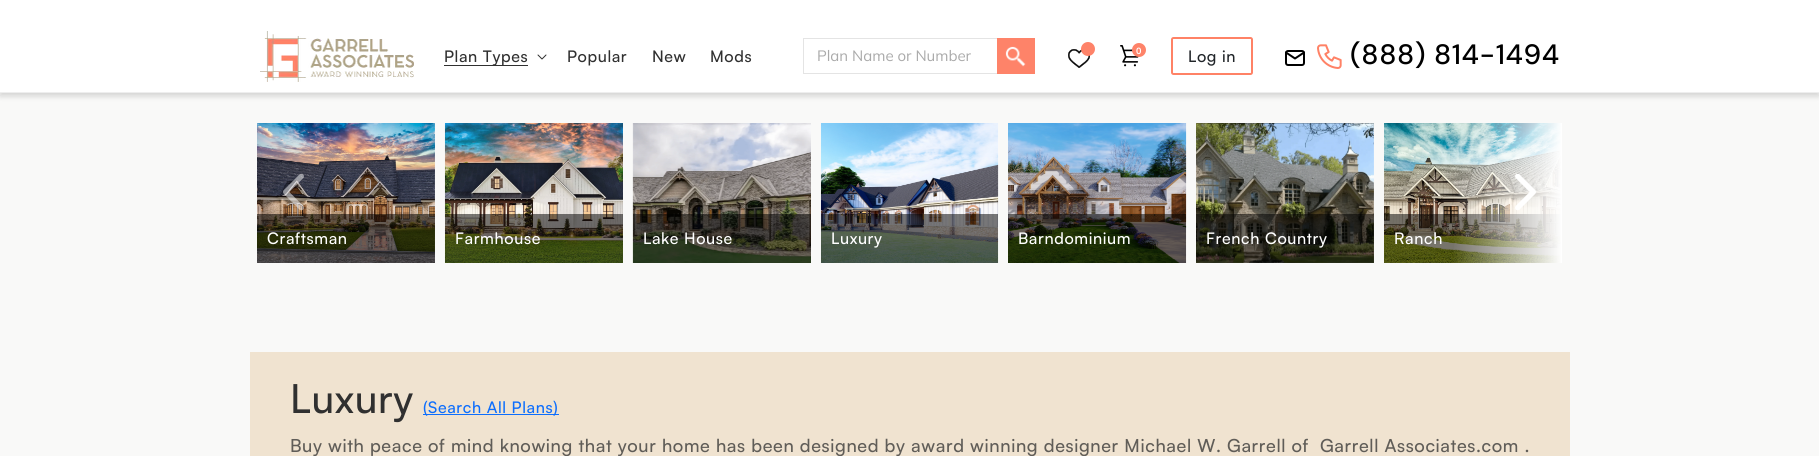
import math
import cairocffi as cairo

surface = cairo.ImageSurface(cairo.FORMAT_RGB24, 1819, 456)
cr = cairo.Context(surface)
options = cairo.FontOptions()
options.set_hint_metrics(cairo.HINT_METRICS_OFF)
options.set_hint_style(cairo.HINT_STYLE_NONE)
cr.set_font_options(options)
cr.set_miter_limit(4)


def use_color(code):
    cr.set_source_rgb(*(v / 255 for v in bytes.fromhex(code[-6:])))


def spaced_text(x, y, s, letter, word):
    cr.move_to(x, y)
    for ch in s:
        cr.show_text(ch)
        cr.rel_move_to(letter + word * (ch == ' '), 0)


def round_rect(x, y, w, h, r):
    cr.new_sub_path()
    for i, (u, v) in enumerate([(x + w - r, y + h - r), (x + r, y + h - r), (x + r, y + r), (x + w - r, y + r)]):
        cr.arc(u, v, r, i * math.pi / 2, (i + 1) * math.pi / 2)
    cr.close_path()


def shadow(x, y, w, h, r, blur, alpha):
    cr.push_group_with_content(cairo.CONTENT_ALPHA)
    cr.set_operator(cairo.OPERATOR_SOURCE)
    for i in range(15, -16, -2):
        e = blur * i / 6
        if min(w, h) + 2 * e > 0:
            cr.set_source_rgba(0, 0, 0, alpha * math.erfc((i - 1) / 8.5) / 2)
            round_rect(x - e, y - e, w + 2 * e, h + 2 * e, max(0, min(r + e + blur * .6, min(w, h) / 2 + e)))
            cr.fill()
    cr.mask(cr.pop_group())


def picture(path, x, y, w, h):
    cr.save()
    cr.set_source_surface(cairo.ImageSurface.create_from_png(path), x, y)
    cr.rectangle(x, y, w, h)
    cr.fill()
    cr.restore()


use_color("#f9f9f8")
cr.paint()
use_color("#000000")
shadow(0, 3, 1819, 93, 0, 3, 0.16)
use_color("#ffffff")
cr.rectangle(0, 0, 1819, 92)
cr.fill()
use_color("#eeeeee")
cr.rectangle(0, 92, 1819, 1)
cr.fill()
picture("img1.png", 260, 31, 154, 51)
use_color("#303030")
cr.rectangle(444, 65, 84, 1)
cr.fill()
cr.select_font_face("Satoshi Medium")
cr.set_font_size(16)
spaced_text(444, 62, "Plan Types", 0.6, 0)
picture("img2.png", 537, 54, 10, 6)
spaced_text(567, 62, "Popular", 0.6, 0)
spaced_text(652, 62, "New", 0.6, 0)
spaced_text(710, 62, "Mods", 0.6, 0)
cr.rectangle(803.5, 38.5, 194, 35)
use_color("#e4e4e4")
cr.set_line_width(1)
cr.stroke()
cr.select_font_face("Muli")
cr.set_font_size(15)
use_color("#aaaaaa")
cr.move_to(817, 61)
cr.show_text("Plan Name or Number")
use_color("#fe8369")
cr.rectangle(997, 38, 38, 36)
cr.fill()
picture("img3.png", 1005, 46, 21, 21)
picture("img4.png", 1068, 49, 22, 19)
cr.arc(1088, 49, 7, 0, 2 * math.pi)
cr.fill()
picture("img5.png", 1120, 45, 19, 22)
cr.arc(1139, 50, 7, 0, 2 * math.pi)
cr.fill()
cr.select_font_face("Muli", cairo.FONT_SLANT_NORMAL, cairo.FONT_WEIGHT_BOLD)
cr.set_font_size(9)
use_color("#ffffff")
spaced_text(1136, 54, "0", 0.6, 0)
round_rect(1172, 38, 80, 36, 1.5)
use_color("#ff8266")
cr.set_line_width(2)
cr.stroke()
cr.select_font_face("Satoshi Medium")
cr.set_font_size(16)
use_color("#212529")
spaced_text(1188, 62, "Log in", 0.6, 0)
round_rect(1286, 51, 18, 14, 2)
use_color("#000000")
cr.stroke()
cr.new_path()
cr.move_to(1286, 52.5)
cr.line_to(1295, 58.5)
cr.line_to(1304, 52.5)
cr.set_line_cap(cairo.LINE_CAP_ROUND)
cr.set_line_join(cairo.LINE_JOIN_ROUND)
cr.stroke()
picture("img6.png", 1317, 44, 25, 25)
cr.select_font_face("DM Sans Medium")
cr.set_font_size(28)
spaced_text(1350, 64, "(888) 814-1494", 0.6, 0)
picture("img9.png", 257, 123, 178, 140)
picture("img7.png", 283, 174, 21, 37)
picture("img15.png", 1384, 123, 177, 140)
cr.set_source_rgba(0, 0, 0, 0.52)
cr.rectangle(1384, 214, 177, 49)
cr.fill()
gradient = cairo.LinearGradient(1452, 193, 1562, 193)
gradient.add_color_stop_rgba(0, 1, 1, 1, 0)
gradient.add_color_stop_rgba(1, 1, 1, 1, 1)
cr.set_source(gradient)
cr.rectangle(1454, 123, 108, 140)
cr.fill()
picture("img8.png", 1515, 174, 21, 37)
cr.set_source_rgba(0, 0, 0, 0.52)
cr.rectangle(257, 214, 178, 49)
cr.fill()
cr.select_font_face("Satoshi Medium")
cr.set_font_size(16)
use_color("#ffffff")
spaced_text(267, 244, "Craftsman", 0.6, 0)
picture("img10.png", 444, 123, 179, 140)
cr.set_source_rgba(0, 0, 0, 0.52)
cr.rectangle(445, 214, 178, 49)
cr.fill()
use_color("#ffffff")
spaced_text(455, 244, "Farmhouse", 0.6, 0)
picture("img11.png", 632, 123, 179, 140)
cr.set_source_rgba(0, 0, 0, 0.52)
cr.rectangle(633, 214, 178, 49)
cr.fill()
use_color("#ffffff")
spaced_text(643, 244, "Lake House", 0.6, 0)
picture("img12.png", 820, 123, 179, 140)
cr.set_source_rgba(0, 0, 0, 0.52)
cr.rectangle(821, 214, 177, 49)
cr.fill()
use_color("#ffffff")
spaced_text(831, 244, "Luxury", 0.6, 0)
picture("img13.png", 1008, 123, 179, 140)
cr.set_source_rgba(0, 0, 0, 0.52)
cr.rectangle(1008, 214, 178, 49)
cr.fill()
use_color("#ffffff")
spaced_text(1018, 244, "Barndominium", 0.6, 0)
picture("img14.png", 1196, 123, 178, 140)
cr.set_source_rgba(0, 0, 0, 0.52)
cr.rectangle(1196, 214, 178, 49)
cr.fill()
use_color("#ffffff")
spaced_text(1206, 244, "French Country", 0.6, 0)
spaced_text(1394, 244, "Ranch", 0.6, 0)
use_color("#f0e3d0")
cr.rectangle(250, 352, 1320, 104)
cr.fill()
cr.set_font_size(40)
use_color("#303030")
spaced_text(290, 413, "Luxury", 0.6, 0)
use_color("#0d6efd")
cr.rectangle(423, 414, 136, 1)
cr.fill()
cr.set_font_size(16)
spaced_text(423, 413, "(Search All Plans)", 0.6, 0)
cr.set_font_size(18)
use_color("#605d58")
spaced_text(290, 452, "Buy with peace of mind knowing that your home has been designed by award winning designer Michael W. Garrell of  Garrell Associates.com .", 0.6, 0)
surface.write_to_png("result.png")
